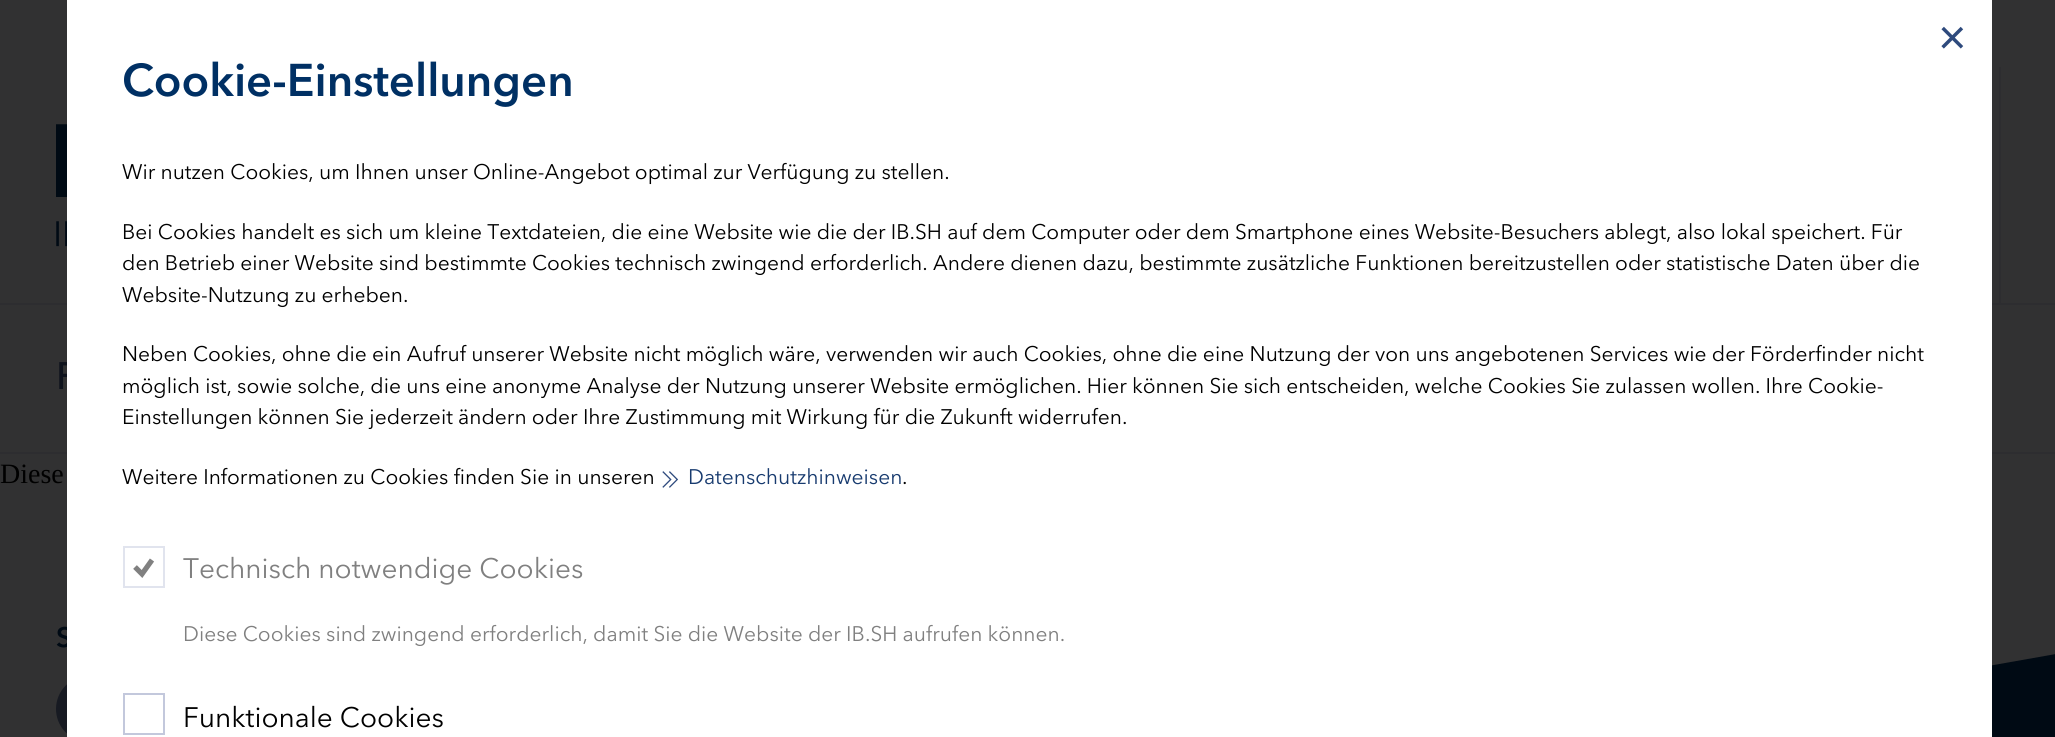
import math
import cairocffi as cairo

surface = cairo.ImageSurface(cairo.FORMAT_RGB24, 2055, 737)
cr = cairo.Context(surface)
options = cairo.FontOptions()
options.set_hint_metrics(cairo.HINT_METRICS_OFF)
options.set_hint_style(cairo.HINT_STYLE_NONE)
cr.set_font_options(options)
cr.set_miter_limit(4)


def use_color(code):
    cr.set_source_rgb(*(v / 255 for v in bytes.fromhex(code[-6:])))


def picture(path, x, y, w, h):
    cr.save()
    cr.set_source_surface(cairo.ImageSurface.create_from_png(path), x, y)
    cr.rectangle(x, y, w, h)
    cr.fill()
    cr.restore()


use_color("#313132")
cr.paint()
use_color("#2d2d30")
cr.rectangle(0, 303, 2055, 2)
cr.fill()
picture("img1.png", 56, 124, 11, 123)
cr.rectangle(1999, 67, 2, 236)
cr.fill()
cr.rectangle(0, 452, 2055, 2)
cr.fill()
cr.select_font_face("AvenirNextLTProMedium")
cr.set_font_size(38)
use_color("#0e121c")
cr.move_to(56, 389)
cr.show_text("F")
use_color("#000a14")
cr.new_path()
cr.move_to(0, 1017)
cr.line_to(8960, 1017)
cr.line_to(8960, -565)
cr.close_path()
cr.fill()
cr.select_font_face("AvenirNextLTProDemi")
cr.set_font_size(28)
cr.move_to(56, 647)
cr.show_text("S")
use_color("#ffffff")
cr.rectangle(67, 0, 1925, 737)
cr.fill()
cr.select_font_face("Liberation Sans")
cr.set_font_size(49)
use_color("#2e4a7d")
cr.move_to(1938, 54)
cr.show_text("×")
cr.select_font_face("AvenirNextLTProDemi")
cr.set_font_size(45.5)
use_color("#003064")
cr.move_to(122, 96)
cr.show_text("Cookie-Einstellungen")
cr.select_font_face("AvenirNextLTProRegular")
cr.set_font_size(21)
use_color("#000000")
cr.move_to(122, 179)
cr.show_text("Wir nutzen Cookies, um Ihnen unser Online-Angebot optimal zur Verfügung zu stellen.")
cr.move_to(122, 239)
cr.show_text("Bei Cookies handelt es sich um kleine Textdateien, die eine Website wie die der IB.SH auf dem Computer oder dem Smartphone eines Website-Besuchers ablegt, also lokal speichert. Für")
cr.move_to(122, 270)
cr.show_text("den Betrieb einer Website sind bestimmte Cookies technisch zwingend erforderlich. Andere dienen dazu, bestimmte zusätzliche Funktionen bereitzustellen oder statistische Daten über die")
cr.move_to(122, 302)
cr.show_text("Website-Nutzung zu erheben.")
cr.move_to(122, 361)
cr.show_text("Neben Cookies, ohne die ein Aufruf unserer Website nicht möglich wäre, verwenden wir auch Cookies, ohne die eine Nutzung der von uns angebotenen Services wie der Förderfinder nicht")
cr.move_to(122, 393)
cr.show_text("möglich ist, sowie solche, die uns eine anonyme Analyse der Nutzung unserer Website ermöglichen. Hier können Sie sich entscheiden, welche Cookies Sie zulassen wollen. Ihre Cookie-")
cr.move_to(122, 424)
cr.show_text("Einstellungen können Sie jederzeit ändern oder Ihre Zustimmung mit Wirkung für die Zukunft widerrufen.")
cr.move_to(122, 484)
cr.show_text("Weitere Informationen zu Cookies finden Sie in unseren")
picture("img2.png", 662, 471, 17, 17)
use_color("#183b6f")
cr.move_to(688, 484)
cr.show_text("Datenschutzhinweisen")
use_color("#000000")
cr.move_to(902, 484)
cr.show_text(".")
cr.new_path()
cr.move_to(135, 567)
cr.line_to(142, 574)
cr.line_to(152, 560)
use_color("#808080")
cr.set_line_width(5.2)
cr.stroke()
cr.rectangle(124, 547, 40, 40)
use_color("#e1e4ee")
cr.set_line_width(2)
cr.stroke()
cr.set_font_size(28)
use_color("#808080")
cr.move_to(183, 578)
cr.show_text("Technisch notwendige Cookies")
cr.set_font_size(21)
cr.move_to(183, 641)
cr.show_text("Diese Cookies sind zwingend erforderlich, damit Sie die Website der IB.SH aufrufen können.")
cr.rectangle(124, 694, 40, 40)
use_color("#c3c8dc")
cr.stroke()
cr.set_font_size(28)
use_color("#000000")
cr.move_to(183, 727)
cr.show_text("Funktionale Cookies")
cr.select_font_face("Liberation Serif")
cr.move_to(0, 483)
cr.show_text("Diese")
picture("img3.png", 56, 684, 11, 50)
surface.write_to_png("result.png")
